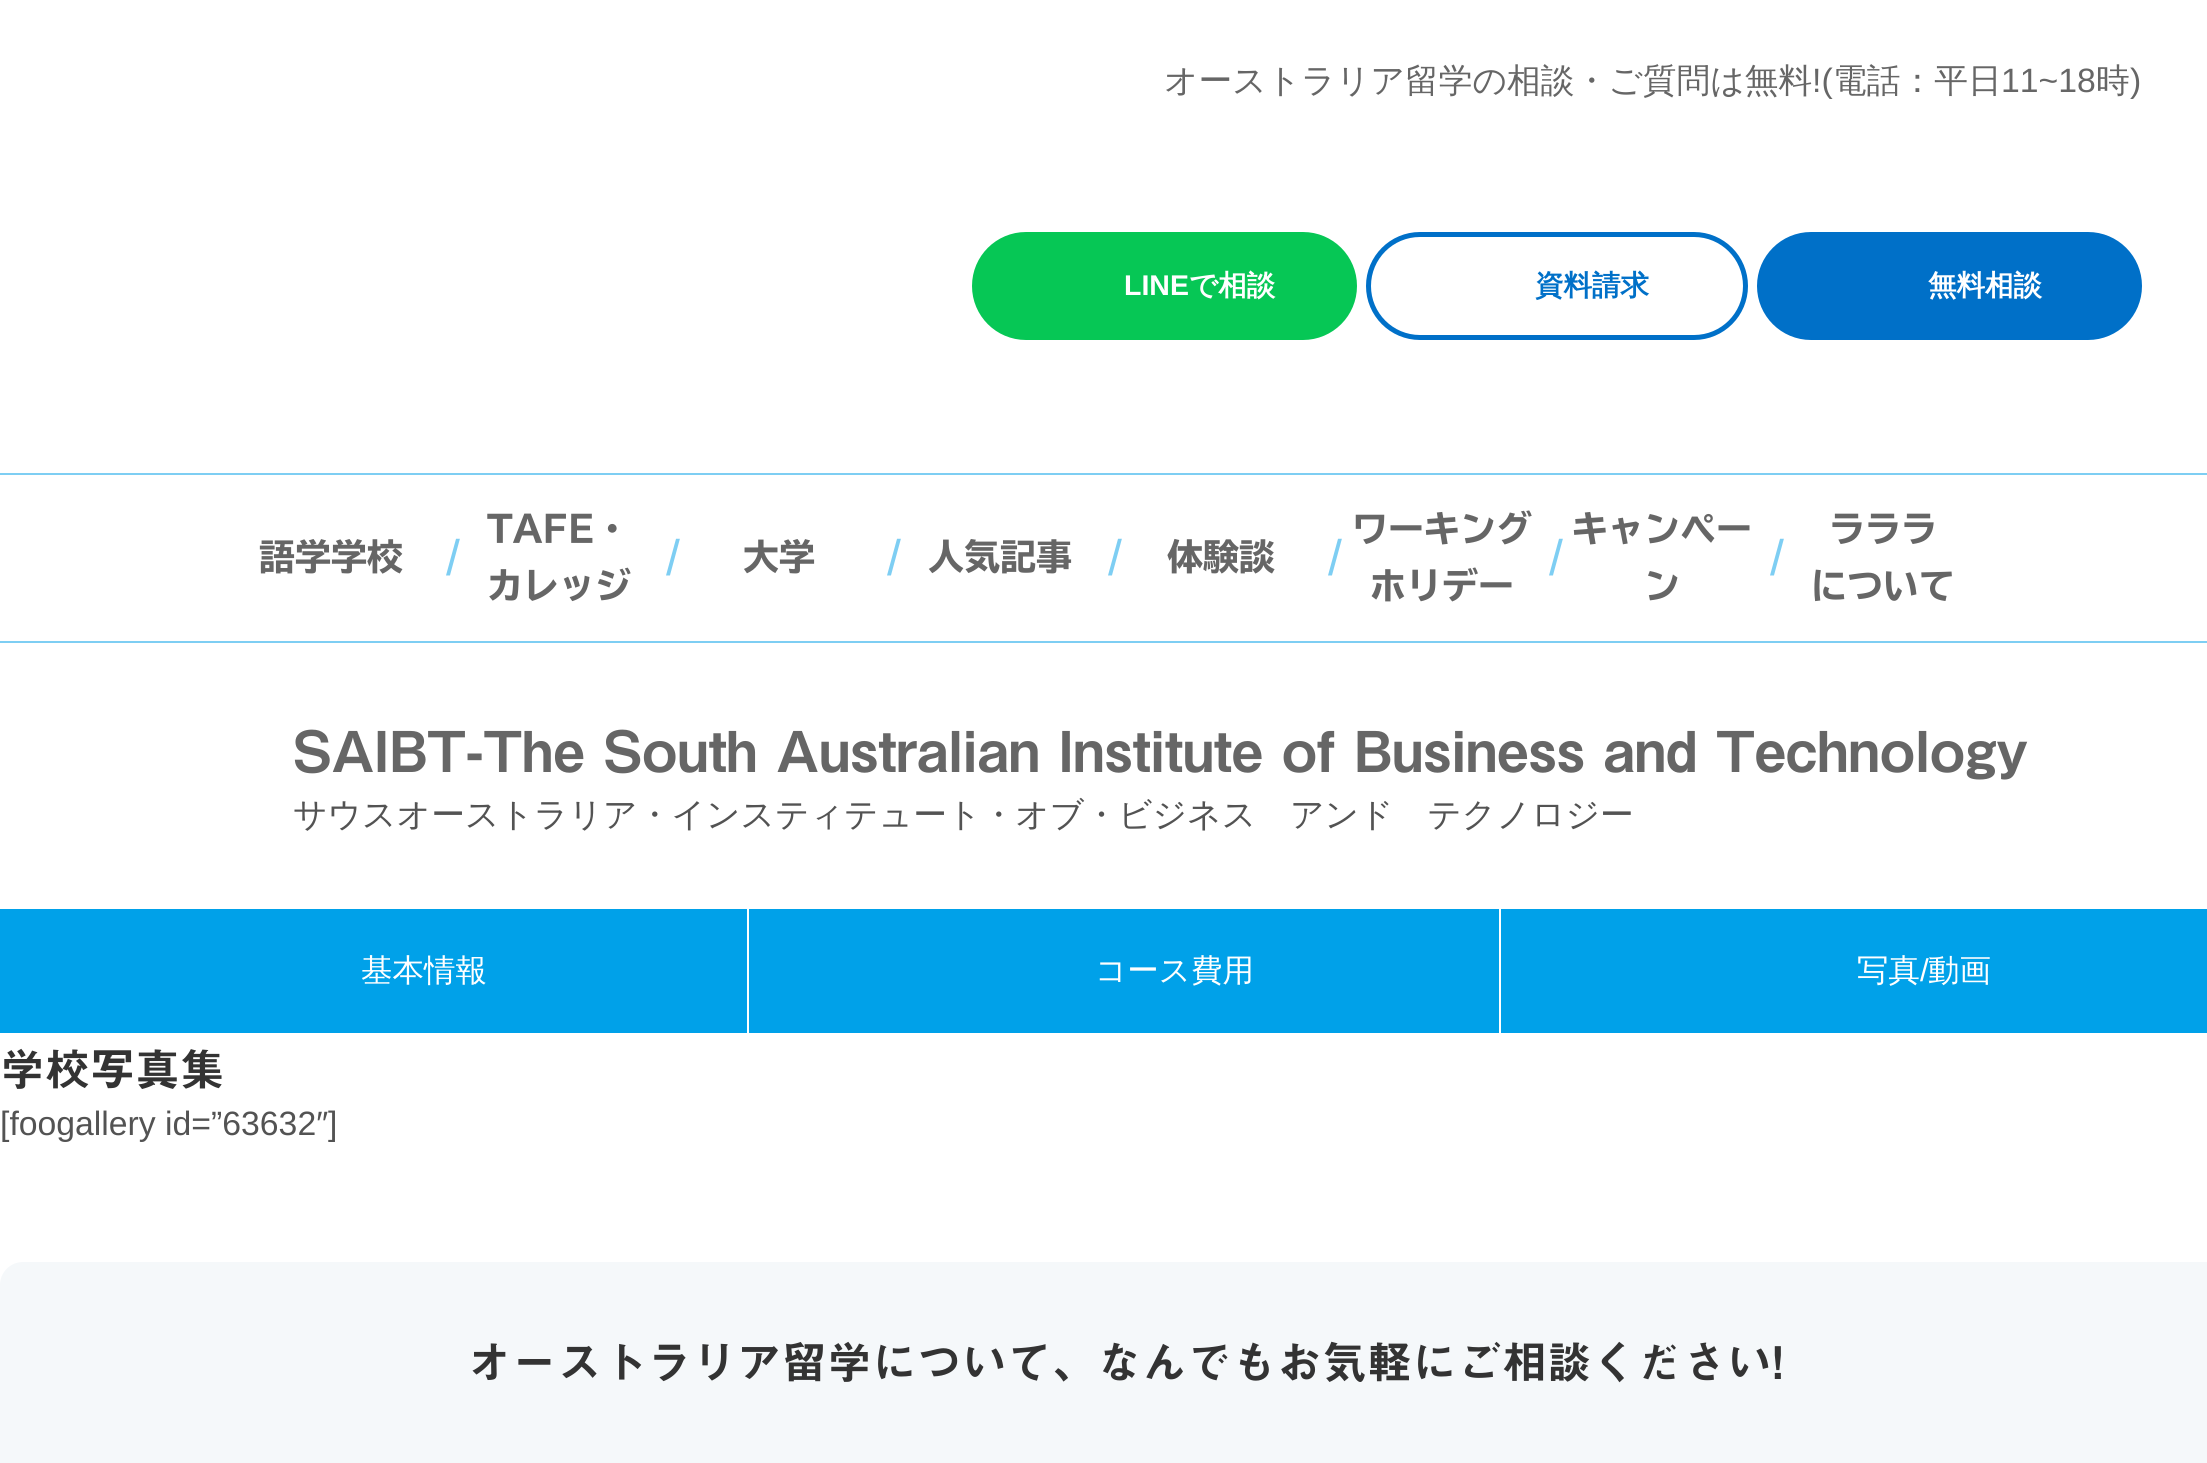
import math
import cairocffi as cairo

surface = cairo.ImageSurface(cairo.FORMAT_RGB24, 2207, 1463)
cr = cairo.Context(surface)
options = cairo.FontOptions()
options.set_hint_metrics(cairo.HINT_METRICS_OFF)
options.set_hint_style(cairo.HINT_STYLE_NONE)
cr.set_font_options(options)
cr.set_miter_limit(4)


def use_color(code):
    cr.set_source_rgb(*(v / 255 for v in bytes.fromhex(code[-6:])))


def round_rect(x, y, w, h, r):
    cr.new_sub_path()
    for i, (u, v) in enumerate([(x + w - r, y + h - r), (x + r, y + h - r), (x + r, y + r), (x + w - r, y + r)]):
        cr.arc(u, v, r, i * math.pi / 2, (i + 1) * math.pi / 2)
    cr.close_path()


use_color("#ffffff")
cr.paint()
cr.select_font_face("WenQuanYi Zen Hei Medium")
cr.set_font_size(33.75)
use_color("#666666")
cr.move_to(1164, 92)
cr.show_text("オーストラリア留学の相談・ご質問は無料")
cr.select_font_face("Liberation Sans")
cr.move_to(1812, 92)
cr.show_text("!(")
cr.select_font_face("WenQuanYi Zen Hei Medium")
cr.move_to(1833, 92)
cr.show_text("電話：平日")
cr.select_font_face("Liberation Sans")
cr.move_to(2001, 92)
cr.show_text("11~18")
cr.select_font_face("WenQuanYi Zen Hei Medium")
cr.move_to(2096, 92)
cr.show_text("時")
cr.select_font_face("Liberation Sans")
cr.move_to(2130, 92)
cr.show_text(")")
use_color("#06c755")
round_rect(974.5, 234.5, 380, 103, 51.5)
cr.fill_preserve()
cr.set_line_width(5)
cr.stroke()
cr.select_font_face("Liberation Sans", cairo.FONT_SLANT_NORMAL, cairo.FONT_WEIGHT_BOLD)
cr.set_font_size(28.5)
use_color("#ffffff")
cr.move_to(1124, 295)
cr.show_text("LINE")
cr.select_font_face("WenQuanYi Zen Hei", cairo.FONT_SLANT_NORMAL, cairo.FONT_WEIGHT_BOLD)
cr.move_to(1189, 295)
cr.show_text("で相談")
round_rect(1368.5, 234.5, 377, 103, 51.5)
use_color("#0070c8")
cr.stroke()
cr.move_to(1535, 295)
cr.show_text("資料請求")
round_rect(1759.5, 234.5, 380, 103, 51.5)
cr.fill_preserve()
cr.stroke()
use_color("#ffffff")
cr.move_to(1928, 295)
cr.show_text("無料相談")
use_color("#7ecef3")
cr.rectangle(0, 473, 2207, 2)
cr.fill()
cr.rectangle(0, 641, 2207, 2)
cr.fill()
cr.select_font_face("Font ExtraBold")
cr.set_font_size(36)
use_color("#666666")
cr.move_to(259, 570)
cr.show_text("語学学校")
cr.select_font_face("Liberation Sans")
cr.set_font_size(50)
use_color("#7ecef3")
cr.move_to(446, 575)
cr.show_text("/")
cr.select_font_face("Font ExtraBold")
cr.set_font_size(36)
use_color("#666666")
cr.move_to(487, 542)
cr.show_text("TAFE・")
cr.move_to(487, 599)
cr.show_text("カレッジ")
cr.select_font_face("Liberation Sans")
cr.set_font_size(50)
use_color("#7ecef3")
cr.move_to(666, 575)
cr.show_text("/")
cr.select_font_face("Font ExtraBold")
cr.set_font_size(36)
use_color("#666666")
cr.move_to(743, 570)
cr.show_text("大学")
cr.select_font_face("Liberation Sans")
cr.set_font_size(50)
use_color("#7ecef3")
cr.move_to(887, 575)
cr.show_text("/")
cr.select_font_face("Font ExtraBold")
cr.set_font_size(36)
use_color("#666666")
cr.move_to(928, 570)
cr.show_text("人気記事")
cr.select_font_face("Liberation Sans")
cr.set_font_size(50)
use_color("#7ecef3")
cr.move_to(1108, 575)
cr.show_text("/")
cr.select_font_face("Font ExtraBold")
cr.set_font_size(36)
use_color("#666666")
cr.move_to(1167, 570)
cr.show_text("体験談")
cr.select_font_face("Liberation Sans")
cr.set_font_size(50)
use_color("#7ecef3")
cr.move_to(1328, 575)
cr.show_text("/")
cr.select_font_face("Font ExtraBold")
cr.set_font_size(36)
use_color("#666666")
cr.move_to(1352, 542)
cr.show_text("ワーキング")
cr.move_to(1370, 599)
cr.show_text("ホリデー")
cr.select_font_face("Liberation Sans")
cr.set_font_size(50)
use_color("#7ecef3")
cr.move_to(1549, 575)
cr.show_text("/")
cr.select_font_face("Font ExtraBold")
cr.set_font_size(36)
use_color("#666666")
cr.move_to(1572, 542)
cr.show_text("キャンペー")
cr.move_to(1644, 599)
cr.show_text("ン")
cr.select_font_face("Liberation Sans")
cr.set_font_size(50)
use_color("#7ecef3")
cr.move_to(1770, 575)
cr.show_text("/")
cr.select_font_face("Font ExtraBold")
cr.set_font_size(36)
use_color("#666666")
cr.move_to(1829, 542)
cr.show_text("ラララ")
cr.move_to(1811, 599)
cr.show_text("について")
cr.select_font_face("Font SemiBold")
cr.set_font_size(56.25)
cr.move_to(293, 772)
cr.show_text("SAIBT-The South Australian Institute of Business and Technology")
cr.select_font_face("WenQuanYi Zen Hei Medium")
cr.set_font_size(33.75)
use_color("#535353")
cr.move_to(293, 826)
cr.show_text("サウスオーストラリア・インスティテュート・オブ・ビジネス　アンド　テクノロジー")
use_color("#00a1e9")
cr.rectangle(0, 909, 747, 124)
cr.fill()
cr.set_font_size(31.5)
use_color("#ffffff")
cr.move_to(361, 981)
cr.show_text("基本情報")
use_color("#00a1e9")
cr.rectangle(749, 909, 750, 124)
cr.fill()
use_color("#ffffff")
cr.move_to(1095, 981)
cr.show_text("コース費用")
use_color("#00a1e9")
cr.rectangle(1501, 909, 706, 124)
cr.fill()
use_color("#ffffff")
cr.move_to(1857, 981)
cr.show_text("写真")
cr.select_font_face("Liberation Sans")
cr.move_to(1920, 981)
cr.show_text("/")
cr.select_font_face("WenQuanYi Zen Hei Medium")
cr.move_to(1928, 981)
cr.show_text("動画")
cr.select_font_face("Font SemiBold")
cr.set_font_size(45)
use_color("#333333")
cr.move_to(0, 1086)
cr.show_text("学校写真集")
cr.select_font_face("Liberation Sans")
cr.set_font_size(33.75)
use_color("#535353")
cr.move_to(0, 1135)
cr.show_text("[foogallery id=”63632″]")
use_color("#f5f8fa")
round_rect(0, 1262, 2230, 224, 23)
cr.fill()
cr.select_font_face("Font SemiBold")
cr.set_font_size(45)
use_color("#333333")
cr.move_to(467, 1379)
cr.show_text("オーストラリア留学について、なんでもお気軽にご相談ください!")
surface.write_to_png("result.png")
